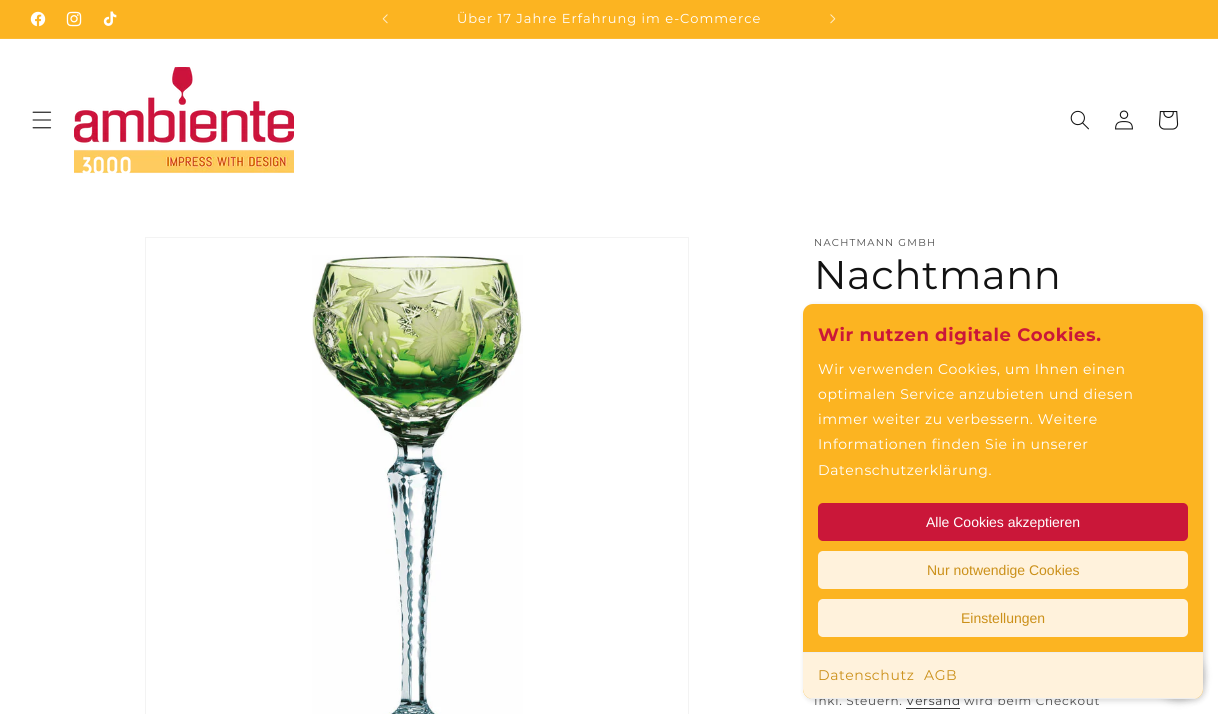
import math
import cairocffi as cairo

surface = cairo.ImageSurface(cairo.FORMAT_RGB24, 1218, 714)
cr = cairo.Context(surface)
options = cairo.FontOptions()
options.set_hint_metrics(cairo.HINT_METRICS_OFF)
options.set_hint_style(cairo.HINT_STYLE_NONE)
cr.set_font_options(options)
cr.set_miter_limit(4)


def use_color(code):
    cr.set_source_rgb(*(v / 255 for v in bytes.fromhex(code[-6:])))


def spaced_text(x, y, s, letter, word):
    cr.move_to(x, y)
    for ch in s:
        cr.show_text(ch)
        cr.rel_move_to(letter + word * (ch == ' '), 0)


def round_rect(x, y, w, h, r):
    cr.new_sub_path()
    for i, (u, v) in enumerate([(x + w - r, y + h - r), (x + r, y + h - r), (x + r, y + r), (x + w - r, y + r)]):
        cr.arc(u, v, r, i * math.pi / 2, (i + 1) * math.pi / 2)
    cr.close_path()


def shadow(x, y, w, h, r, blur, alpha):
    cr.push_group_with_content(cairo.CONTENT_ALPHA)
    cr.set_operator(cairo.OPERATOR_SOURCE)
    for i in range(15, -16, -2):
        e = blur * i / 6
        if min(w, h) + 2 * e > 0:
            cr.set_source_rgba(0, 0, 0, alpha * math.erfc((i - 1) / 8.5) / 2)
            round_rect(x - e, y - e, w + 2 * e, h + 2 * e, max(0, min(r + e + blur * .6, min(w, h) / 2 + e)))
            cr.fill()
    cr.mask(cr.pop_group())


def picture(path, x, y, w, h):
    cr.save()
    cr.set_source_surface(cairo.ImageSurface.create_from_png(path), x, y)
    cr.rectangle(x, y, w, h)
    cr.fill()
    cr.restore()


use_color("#ffffff")
cr.paint()
use_color("#fcb421")
cr.rectangle(0, 0, 1218, 38)
cr.fill()
use_color("#fcba33")
cr.rectangle(0, 38, 1218, 1)
cr.fill()
picture("img1.png", 30, 11, 16, 16)
picture("img2.png", 66, 11, 16, 16)
picture("img3.png", 103, 11, 14, 15)
picture("img4.png", 382, 14, 6, 10)
cr.select_font_face("Montserrat")
cr.set_font_size(13)
use_color("#ffffff")
spaced_text(457, 23, "Über 17 Jahre Erfahrung im e-Commerce", 1, 0)
picture("img5.png", 830, 14, 6, 10)
picture("img6.png", 32, 111, 20, 18)
picture("img7.png", 74, 67, 220, 107)
picture("img8.png", 1070, 110, 19, 20)
picture("img9.png", 1115, 110, 18, 20)
picture("img10.png", 1159, 111, 20, 19)
cr.rectangle(145.5, 237.5, 543, 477)
use_color("#f3f3f3")
cr.set_line_width(1)
cr.stroke()
picture("img11.png", 312, 255, 211, 459)
cr.set_font_size(10)
use_color("#4d4d4d")
spaced_text(814, 246, "NACHTMANN GMBH", 1.25, 0)
cr.set_font_size(40)
use_color("#121212")
spaced_text(814, 289, "Nachtmann", 0.6, 0)
cr.set_font_size(12)
use_color("#4d4d4d")
spaced_text(814, 705, "Inkl. Steuern.", 0.75, 0)
use_color("#363636")
spaced_text(906, 705, "Versand", 0.75, 0)
cr.rectangle(906, 708, 54, 1)
cr.fill()
use_color("#4d4d4d")
spaced_text(964, 705, "wird beim Checkout", 0.75, 0)
use_color("#000000")
shadow(805, 306, 400, 395, 10, 3, 0.15)
shadow(1154, 651, 50, 50, 25, 4, 0.2)
use_color("#fcb421")
round_rect(803, 304, 400, 395, 10)
cr.fill()
cr.select_font_face("Montserrat", cairo.FONT_SLANT_NORMAL, cairo.FONT_WEIGHT_BOLD)
cr.set_font_size(18)
use_color("#ca1739")
spaced_text(818, 341, "Wir nutzen digitale Cookies.", 0.6, 0)
cr.select_font_face("Montserrat")
cr.set_font_size(14)
use_color("#ffffff")
spaced_text(818, 374, "Wir verwenden Cookies, um Ihnen einen", 0.6, 0)
spaced_text(818, 399, "optimalen Service anzubieten und diesen", 0.6, 0)
spaced_text(818, 424, "immer weiter zu verbessern. Weitere", 0.6, 0)
spaced_text(818, 449, "Informationen finden Sie in unserer", 0.6, 0)
spaced_text(818, 475, "Datenschutzerklärung.", 0.6, 0)
use_color("#ca1739")
round_rect(818, 503, 370, 38, 5)
cr.fill()
cr.select_font_face("Liberation Sans")
use_color("#ffffff")
cr.move_to(926, 527)
cr.show_text("Alle Cookies akzeptieren")
use_color("#fff2dc")
round_rect(818, 551, 370, 38, 5)
cr.fill()
use_color("#cb9019")
cr.move_to(927, 575)
cr.show_text("Nur notwendige Cookies")
use_color("#fff2dc")
round_rect(818, 599, 370, 38, 5)
cr.fill()
use_color("#cb9019")
cr.move_to(961, 623)
cr.show_text("Einstellungen")
use_color("#fff2dc")
cr.new_path()
cr.move_to(803, 652)
cr.line_to(1203, 652)
cr.line_to(1203, 689)
cr.curve_to(1203, 694.5, 1198.5, 699, 1193, 699)
cr.line_to(813, 699)
cr.curve_to(807.5, 699, 803, 694.5, 803, 689)
cr.close_path()
cr.fill()
use_color("#eeeeee")
cr.rectangle(803, 652, 400, 1)
cr.fill()
cr.save()
round_rect(803, 304, 400, 395, 10)
cr.clip()
cr.rectangle(803, 698, 400, 1)
cr.fill()
cr.restore()
cr.select_font_face("Montserrat")
use_color("#cb9019")
spaced_text(818, 680, "Datenschutz", 0.6, 0)
spaced_text(924, 680, "AGB", 0.6, 0)
surface.write_to_png("result.png")
